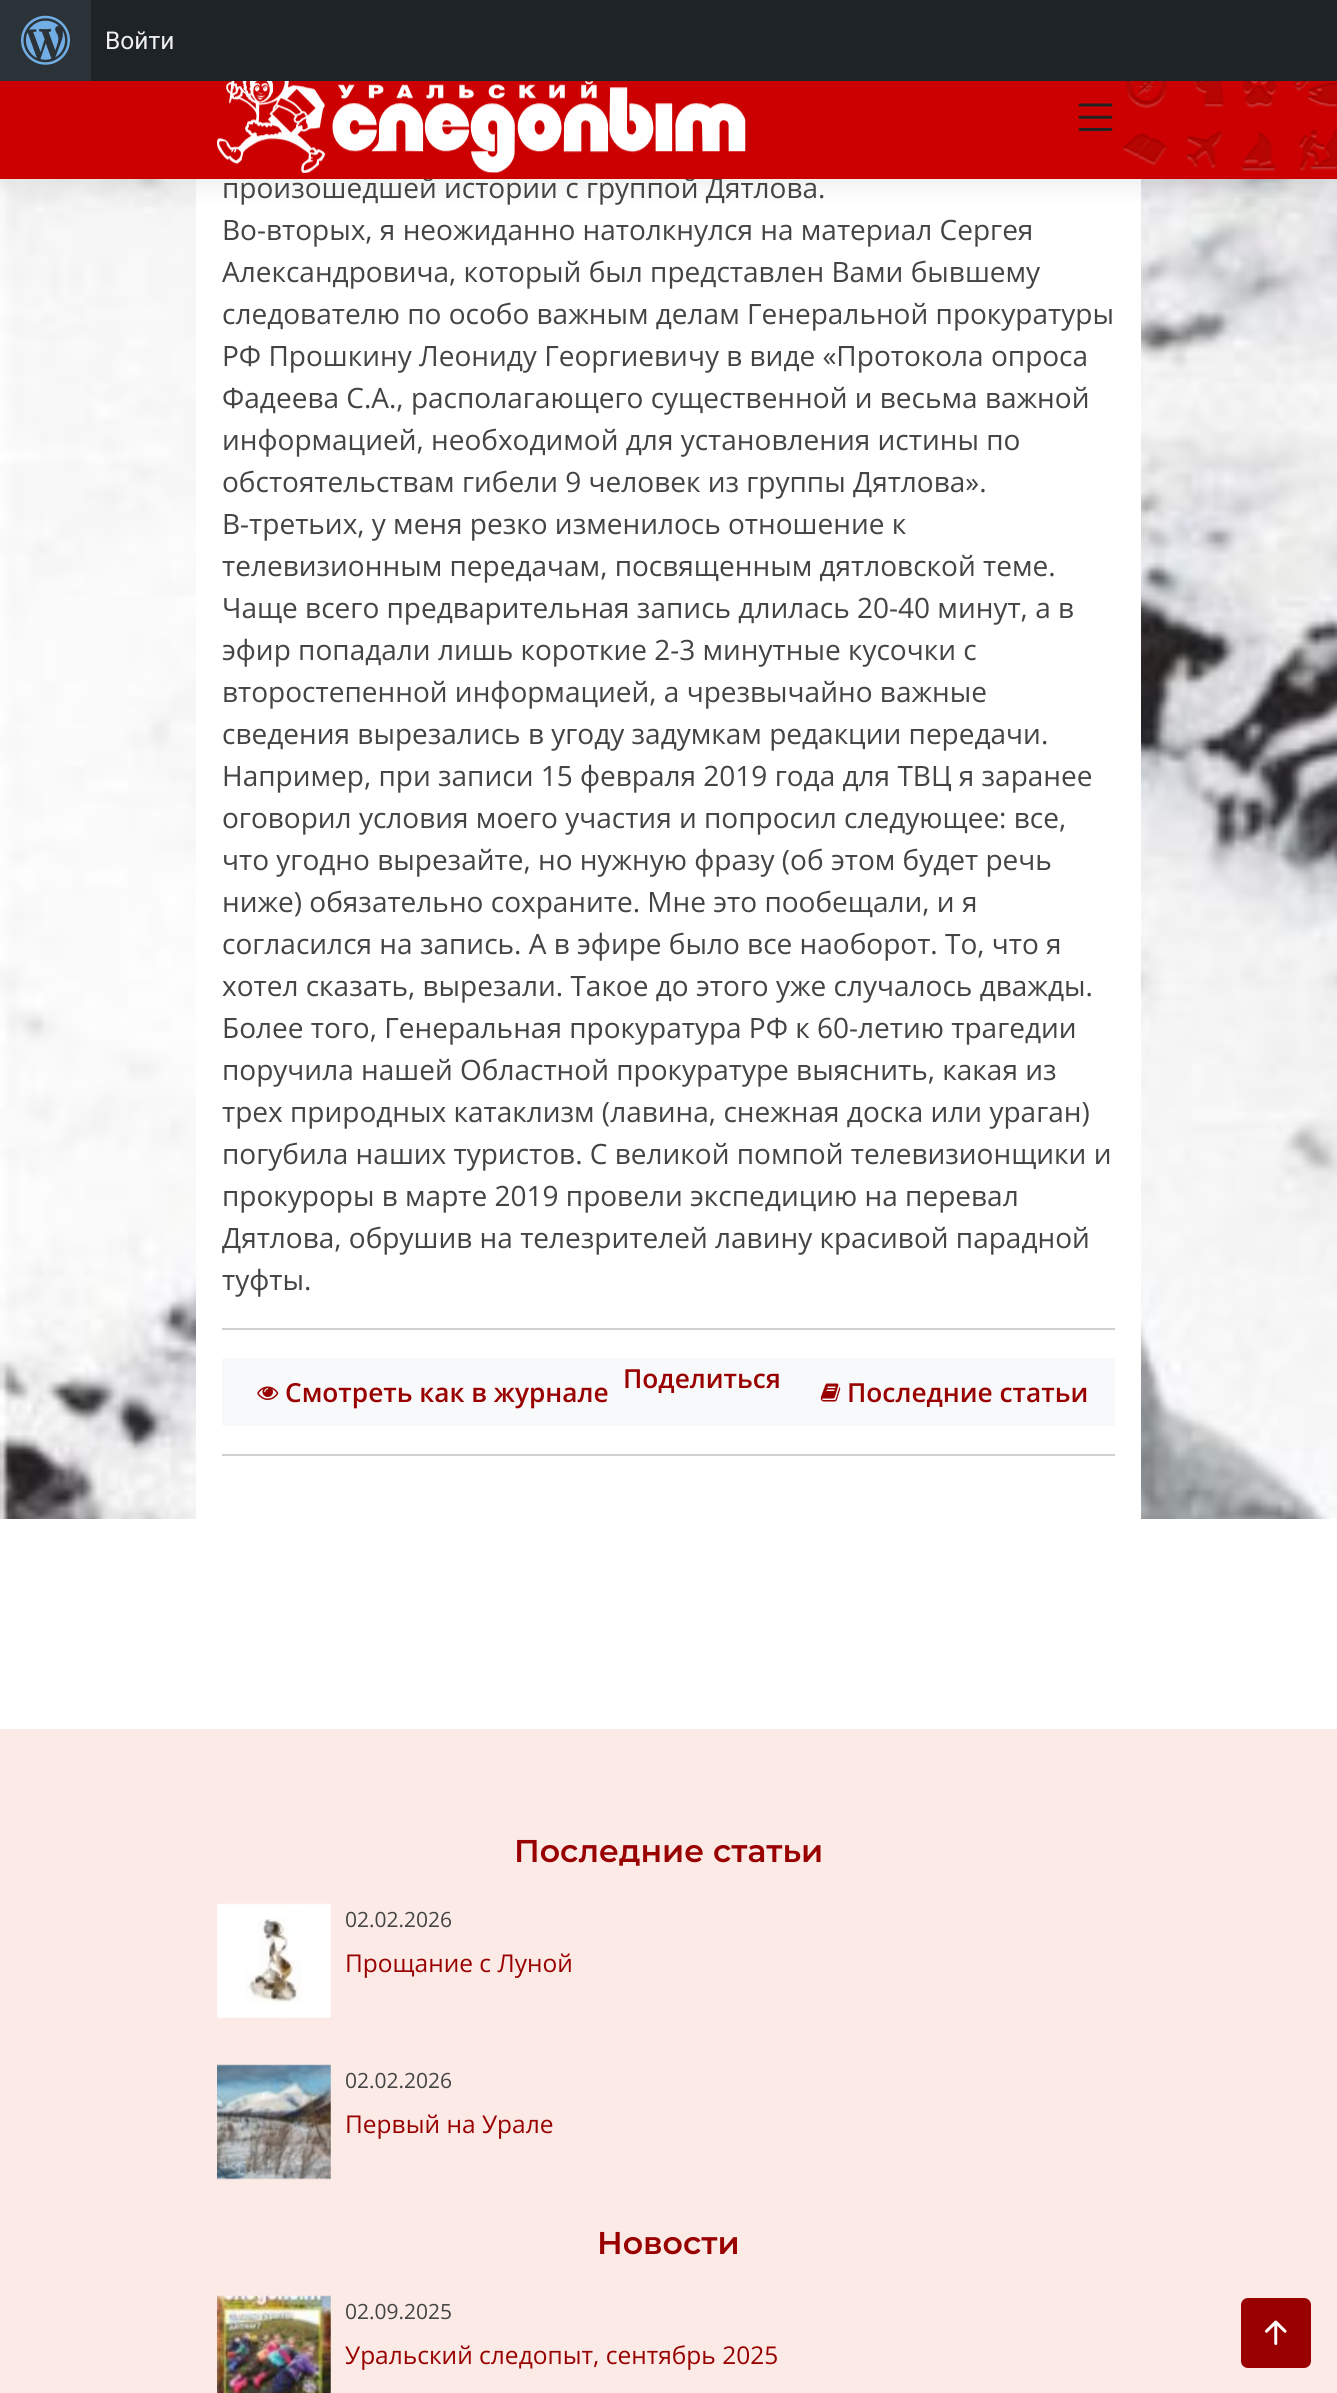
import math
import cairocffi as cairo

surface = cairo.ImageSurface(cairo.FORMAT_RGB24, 1337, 2393)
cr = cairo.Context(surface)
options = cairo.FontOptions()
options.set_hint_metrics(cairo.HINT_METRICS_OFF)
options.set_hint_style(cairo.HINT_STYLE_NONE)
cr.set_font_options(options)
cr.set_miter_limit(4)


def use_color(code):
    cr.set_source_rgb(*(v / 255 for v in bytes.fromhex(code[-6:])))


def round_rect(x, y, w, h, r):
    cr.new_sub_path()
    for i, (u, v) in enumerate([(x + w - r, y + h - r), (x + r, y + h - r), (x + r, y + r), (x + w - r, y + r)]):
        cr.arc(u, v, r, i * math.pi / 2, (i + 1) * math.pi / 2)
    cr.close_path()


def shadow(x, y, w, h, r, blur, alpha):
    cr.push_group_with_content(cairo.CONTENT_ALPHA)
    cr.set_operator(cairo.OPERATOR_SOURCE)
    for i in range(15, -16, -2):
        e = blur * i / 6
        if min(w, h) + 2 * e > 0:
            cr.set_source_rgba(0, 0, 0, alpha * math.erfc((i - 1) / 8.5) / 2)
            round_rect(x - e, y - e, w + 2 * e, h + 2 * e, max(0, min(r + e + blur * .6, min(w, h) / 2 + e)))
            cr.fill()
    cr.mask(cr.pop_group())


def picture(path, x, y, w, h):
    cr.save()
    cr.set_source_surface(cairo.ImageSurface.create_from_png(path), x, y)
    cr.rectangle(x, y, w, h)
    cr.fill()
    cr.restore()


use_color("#ffffff")
cr.paint()
picture("img5.png", 0, 179, 1337, 1340)
use_color("#ffffff")
cr.rectangle(196, 179, 945, 1340)
cr.fill()
use_color("#000000")
shadow(0, 60, 1337, 122, 0, 13, 0.1)
cr.select_font_face("Open Sans")
cr.set_font_size(28)
use_color("#444444")
cr.move_to(222, 198)
cr.show_text("произошедшей истории с группой Дятлова.")
use_color("#cc0000")
cr.rectangle(0, 81, 1337, 98)
cr.fill()
picture("img1.png", 1122, 81, 215, 90)
picture("img2.png", 217, 81, 529, 92)
picture("img3.png", 1078, 103, 35, 28)
use_color("#1d2327")
cr.rectangle(91, 0, 1246, 81)
cr.fill()
use_color("#2c3338")
cr.rectangle(0, 0, 91, 81)
cr.fill()
picture("img4.png", 21, 15, 49, 50)
cr.select_font_face("Roboto")
cr.set_font_size(24.5)
use_color("#f0f0f1")
cr.move_to(105, 49)
cr.show_text("Войти")
cr.select_font_face("Open Sans")
cr.set_font_size(28)
use_color("#444444")
cr.move_to(222, 240)
cr.show_text("Во-вторых, я неожиданно натолкнулся на материал Сергея")
cr.move_to(222, 282)
cr.show_text("Александровича, который был представлен Вами бывшему")
cr.move_to(222, 324)
cr.show_text("следователю по особо важным делам Генеральной прокуратуры")
cr.move_to(222, 366)
cr.show_text("РФ Прошкину Леониду Георгиевичу в виде «Протокола опроса")
cr.move_to(222, 408)
cr.show_text("Фадеева С.А., располагающего существенной и весьма важной")
cr.move_to(222, 450)
cr.show_text("информацией, необходимой для установления истины по")
cr.move_to(222, 492)
cr.show_text("обстоятельствам гибели 9 человек из группы Дятлова».")
cr.move_to(222, 534)
cr.show_text("В-третьих, у меня резко изменилось отношение к")
cr.move_to(222, 576)
cr.show_text("телевизионным передачам, посвященным дятловской теме.")
cr.move_to(222, 618)
cr.show_text("Чаще всего предварительная запись длилась 20-40 минут, а в")
cr.move_to(222, 660)
cr.show_text("эфир попадали лишь короткие 2-3 минутные кусочки с")
cr.move_to(222, 702)
cr.show_text("второстепенной информацией, а чрезвычайно важные")
cr.move_to(222, 744)
cr.show_text("сведения вырезались в угоду задумкам редакции передачи.")
cr.move_to(222, 786)
cr.show_text("Например, при записи 15 февраля 2019 года для ТВЦ я заранее")
cr.move_to(222, 828)
cr.show_text("оговорил условия моего участия и попросил следующее: все,")
cr.move_to(222, 870)
cr.show_text("что угодно вырезайте, но нужную фразу (об этом будет речь")
cr.move_to(222, 912)
cr.show_text("ниже) обязательно сохраните. Мне это пообещали, и я")
cr.move_to(222, 954)
cr.show_text("согласился на запись. А в эфире было все наоборот. То, что я")
cr.move_to(222, 996)
cr.show_text("хотел сказать, вырезали. Такое до этого уже случалось дважды.")
cr.move_to(222, 1038)
cr.show_text("Более того, Генеральная прокуратура РФ к 60-летию трагедии")
cr.move_to(222, 1080)
cr.show_text("поручила нашей Областной прокуратуре выяснить, какая из")
cr.move_to(222, 1122)
cr.show_text("трех природных катаклизм (лавина, снежная доска или ураган)")
cr.move_to(222, 1164)
cr.show_text("погубила наших туристов. С великой помпой телевизионщики и")
cr.move_to(222, 1206)
cr.show_text("прокуроры в марте 2019 провели экспедицию на перевал")
cr.move_to(222, 1248)
cr.show_text("Дятлова, обрушив на телезрителей лавину красивой парадной")
cr.move_to(222, 1290)
cr.show_text("туфты.")
use_color("#d0d0d0")
cr.rectangle(222, 1328, 893, 2)
cr.fill()
use_color("#f8f9fa")
cr.rectangle(222, 1358, 893, 68)
cr.fill()
picture("img6.png", 257, 1386, 22, 14)
cr.select_font_face("Open Sans SemiBold")
cr.set_font_size(26.25)
use_color("#990000")
cr.move_to(285, 1402)
cr.show_text("Смотреть как в журнале")
cr.move_to(623, 1388)
cr.show_text("Поделиться")
picture("img7.png", 820, 1383, 21, 19)
cr.move_to(847, 1402)
cr.show_text("Последние статьи")
use_color("#d0d0d0")
cr.rectangle(222, 1454, 893, 2)
cr.fill()
use_color("#fbeae5")
cr.rectangle(0, 1729, 1337, 664)
cr.fill()
cr.select_font_face("Montserrat SemiBold")
cr.set_font_size(31.5)
use_color("#990000")
cr.move_to(514, 1862)
cr.show_text("Последние статьи")
picture("img8.png", 217, 1903, 114, 115)
cr.select_font_face("Open Sans")
cr.set_font_size(21)
use_color("#444444")
cr.move_to(345, 1927)
cr.show_text("02.02.2026")
cr.set_font_size(24.5)
use_color("#990000")
cr.move_to(345, 1972)
cr.show_text("Прощание с Луной")
picture("img9.png", 217, 2064, 114, 116)
cr.set_font_size(21)
use_color("#444444")
cr.move_to(345, 2088)
cr.show_text("02.02.2026")
cr.set_font_size(24.5)
use_color("#990000")
cr.move_to(345, 2133)
cr.show_text("Первый на Урале")
cr.select_font_face("Montserrat SemiBold")
cr.set_font_size(31.5)
cr.move_to(597, 2254)
cr.show_text("Новости")
picture("img10.png", 217, 2295, 114, 98)
cr.select_font_face("Open Sans")
cr.set_font_size(21)
use_color("#444444")
cr.move_to(345, 2319)
cr.show_text("02.09.2025")
cr.set_font_size(24.5)
use_color("#990000")
cr.move_to(345, 2364)
cr.show_text("Уральский следопыт, сентябрь 2025")
round_rect(1241, 2298, 70, 70, 7)
cr.fill()
picture("img11.png", 1265, 2320, 22, 25)
surface.write_to_png("result.png")
